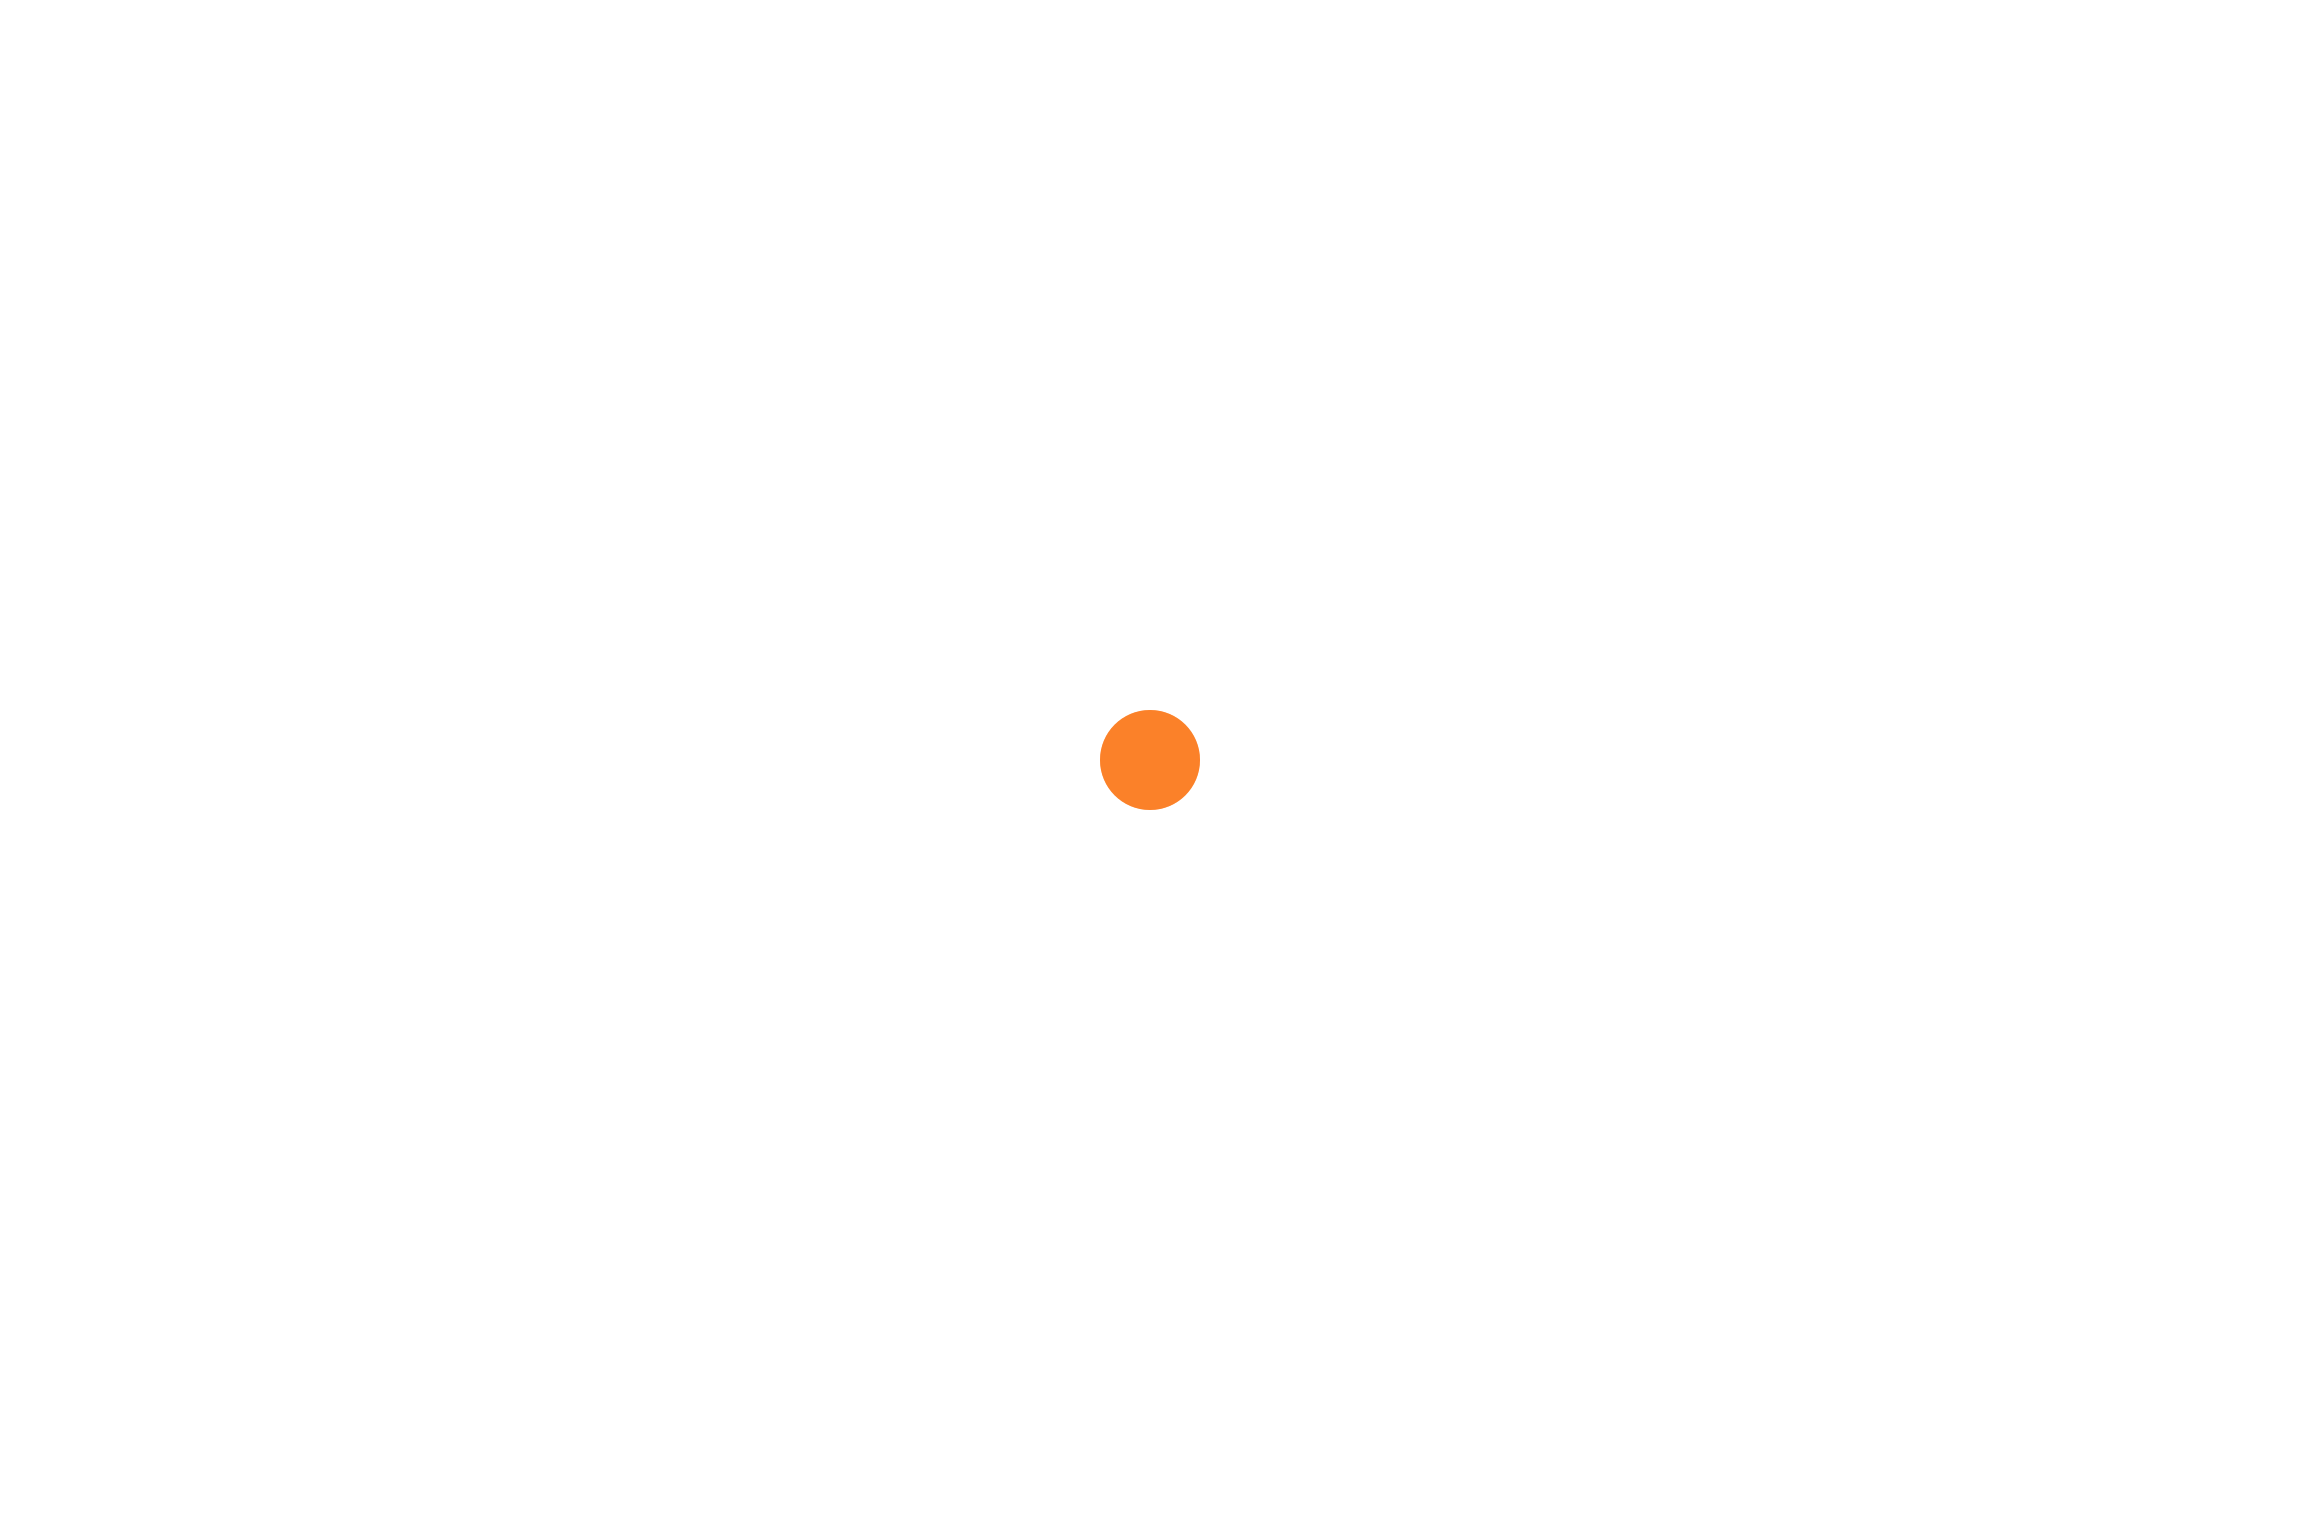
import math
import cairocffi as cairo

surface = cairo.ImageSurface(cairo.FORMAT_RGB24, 2297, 1516)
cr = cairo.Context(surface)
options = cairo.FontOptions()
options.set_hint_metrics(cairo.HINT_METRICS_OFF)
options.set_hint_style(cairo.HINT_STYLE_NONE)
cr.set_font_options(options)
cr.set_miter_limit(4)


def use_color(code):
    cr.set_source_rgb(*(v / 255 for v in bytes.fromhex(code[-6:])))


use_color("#ffffff")
cr.paint()
use_color("#fca566")
cr.arc(1150, 760, 50, 0, 2 * math.pi)
cr.fill()
cr.set_source_rgba(0.98, 0.412, 0, 0.6)
cr.arc(1150, 760, 50, 0, 2 * math.pi)
cr.fill()
surface.write_to_png("result.png")
